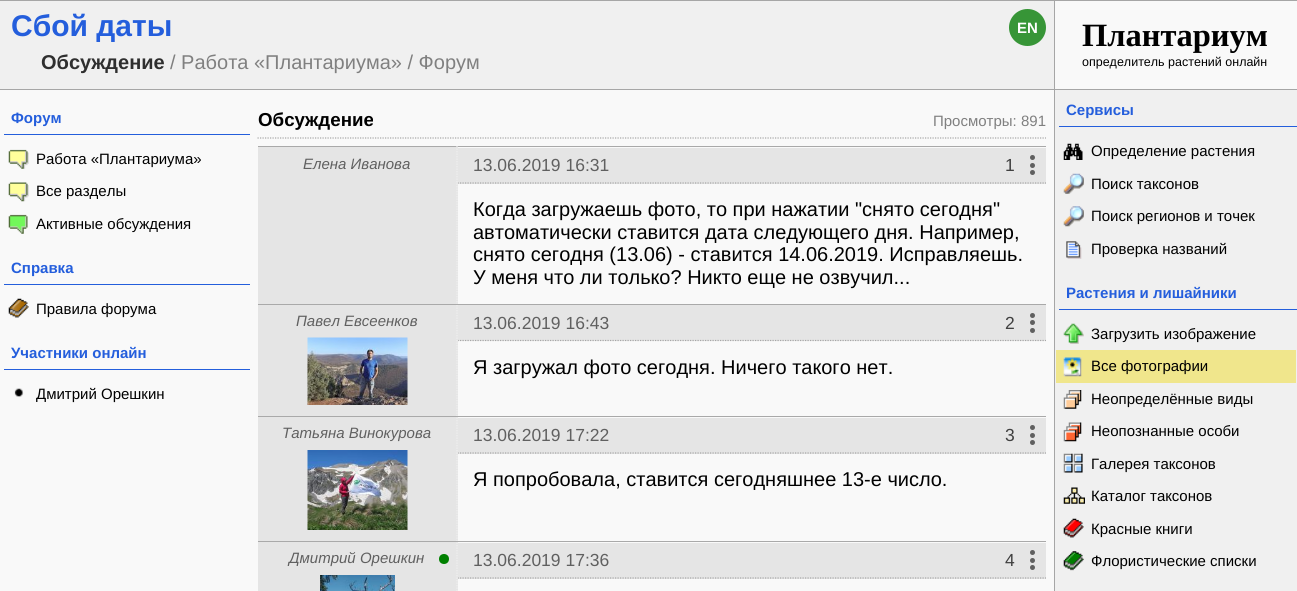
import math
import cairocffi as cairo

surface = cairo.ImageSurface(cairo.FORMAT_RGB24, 1297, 591)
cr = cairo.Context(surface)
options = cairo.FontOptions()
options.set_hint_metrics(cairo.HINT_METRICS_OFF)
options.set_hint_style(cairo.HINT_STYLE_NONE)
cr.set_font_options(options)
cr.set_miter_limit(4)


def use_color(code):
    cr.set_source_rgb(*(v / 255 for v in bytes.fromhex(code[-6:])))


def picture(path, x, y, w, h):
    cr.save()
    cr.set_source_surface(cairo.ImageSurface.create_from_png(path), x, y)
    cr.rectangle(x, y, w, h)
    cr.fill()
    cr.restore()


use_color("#f9f9f9")
cr.paint()
use_color("#f0f0f0")
cr.rectangle(0, 1, 1054, 88)
cr.fill()
cr.select_font_face("Liberation Sans", cairo.FONT_SLANT_NORMAL, cairo.FONT_WEIGHT_BOLD)
cr.set_font_size(30)
use_color("#245edc")
cr.move_to(11, 36)
cr.show_text("Сбой даты")
cr.set_font_size(20)
use_color("#2f2f2f")
cr.move_to(41, 69)
cr.show_text("Обсуждение")
cr.select_font_face("Liberation Sans")
use_color("#808080")
cr.move_to(170, 69)
cr.show_text("/ Работа «Плантариума» / Форум")
use_color("#379537")
cr.new_path()
cr.arc(1027.5, 27.5, 18.5, 0, 2 * math.pi)
cr.fill()
cr.select_font_face("Liberation Sans", cairo.FONT_SLANT_NORMAL, cairo.FONT_WEIGHT_BOLD)
cr.set_font_size(15)
use_color("#fefefe")
cr.move_to(1017, 33)
cr.show_text("EN")
use_color("#a6a6a6")
cr.rectangle(0, 0, 1297, 1)
cr.fill()
cr.rectangle(0, 89, 1297, 1)
cr.fill()
cr.rectangle(1054, 0, 1, 591)
cr.fill()
cr.select_font_face("Liberation Serif", cairo.FONT_SLANT_NORMAL, cairo.FONT_WEIGHT_BOLD)
cr.set_font_size(32.5)
use_color("#000000")
cr.move_to(1082, 46)
cr.show_text("Плантариум")
cr.select_font_face("Liberation Sans")
cr.set_font_size(12.5)
cr.move_to(1082, 66)
cr.show_text("определитель растений онлайн")
use_color("#245edc")
cr.rectangle(4, 134, 246, 1)
cr.fill()
cr.select_font_face("Liberation Sans", cairo.FONT_SLANT_NORMAL, cairo.FONT_WEIGHT_BOLD)
cr.set_font_size(15)
cr.move_to(11, 123)
cr.show_text("Форум")
picture("img1.png", 8, 149, 21, 20)
cr.select_font_face("Liberation Sans")
use_color("#000000")
cr.move_to(36, 164)
cr.show_text("Работа «Плантариума»")
picture("img2.png", 8, 182, 21, 20)
cr.move_to(36, 196)
cr.show_text("Все разделы")
picture("img3.png", 8, 214, 20, 20)
cr.move_to(36, 229)
cr.show_text("Активные обсуждения")
use_color("#245edc")
cr.rectangle(4, 284, 246, 1)
cr.fill()
cr.select_font_face("Liberation Sans", cairo.FONT_SLANT_NORMAL, cairo.FONT_WEIGHT_BOLD)
cr.move_to(11, 273)
cr.show_text("Справка")
picture("img4.png", 8, 298, 21, 20)
cr.select_font_face("Liberation Sans")
use_color("#000000")
cr.move_to(36, 314)
cr.show_text("Правила форума")
use_color("#245edc")
cr.rectangle(4, 369, 246, 1)
cr.fill()
cr.select_font_face("Liberation Sans", cairo.FONT_SLANT_NORMAL, cairo.FONT_WEIGHT_BOLD)
cr.move_to(11, 358)
cr.show_text("Участники онлайн")
picture("img5.png", 14, 388, 10, 10)
cr.select_font_face("Liberation Sans")
use_color("#000000")
cr.move_to(36, 399)
cr.show_text("Дмитрий Орешкин")
cr.new_path()
cr.move_to(257.5, 138)
cr.line_to(1046, 138)
use_color("#a6a6a6")
cr.set_line_width(1.2)
cr.set_dash([1.25, 1.25])
cr.stroke()
cr.select_font_face("Liberation Sans", cairo.FONT_SLANT_NORMAL, cairo.FONT_WEIGHT_BOLD)
cr.set_font_size(18.75)
use_color("#000000")
cr.move_to(258, 126)
cr.show_text("Обсуждение")
cr.select_font_face("Liberation Sans")
cr.set_font_size(15)
use_color("#808080")
cr.move_to(933, 126)
cr.show_text("Просмотры: 891")
use_color("#e5e5e5")
cr.rectangle(458, 148, 588, 36)
cr.fill()
cr.new_path()
cr.move_to(457.5, 183)
cr.line_to(1046, 183)
use_color("#a6a6a6")
cr.stroke()
use_color("#e5e5e5")
cr.rectangle(258, 147, 200, 157)
cr.fill()
use_color("#a9a9a9")
cr.rectangle(258, 146, 788, 1)
cr.fill()
cr.new_path()
cr.move_to(457, 146)
cr.line_to(457, 305)
use_color("#efefef")
cr.stroke()
use_color("#a9a9a9")
cr.rectangle(258, 304, 200, 1)
cr.fill()
cr.select_font_face("Liberation Sans", cairo.FONT_SLANT_ITALIC)
use_color("#606060")
cr.move_to(303, 169)
cr.show_text("Елена Иванова")
use_color("#a9a9a9")
cr.rectangle(458, 304, 588, 1)
cr.fill()
cr.select_font_face("Liberation Sans")
cr.set_font_size(17.5)
use_color("#606060")
cr.move_to(473, 171)
cr.show_text("13.06.2019 16:31")
use_color("#404040")
cr.move_to(1005, 171)
cr.show_text("1")
use_color("#606060")
cr.new_path()
cr.arc(1032.5, 157.5, 2.5, 0, 2 * math.pi)
cr.fill()
cr.arc(1032.5, 165.5, 2.5, 0, 2 * math.pi)
cr.fill()
cr.arc(1032.5, 172.5, 2.5, 0, 2 * math.pi)
cr.fill()
cr.set_font_size(20)
use_color("#000000")
cr.move_to(473, 216)
cr.show_text("Когда загружаешь фото, то при нажатии \"снято сегодня\"")
cr.move_to(473, 239)
cr.show_text("автоматически ставится дата следующего дня. Например,")
cr.move_to(473, 261)
cr.show_text("снято сегодня (13.06) - ставится 14.06.2019. Исправляешь.")
cr.move_to(473, 284)
cr.show_text("У меня что ли только? Никто еще не озвучил...")
use_color("#e5e5e5")
cr.rectangle(458, 305, 588, 36)
cr.fill()
cr.new_path()
cr.move_to(457.5, 340.5)
cr.line_to(1046, 340.5)
use_color("#a6a6a6")
cr.stroke()
use_color("#e5e5e5")
cr.rectangle(458, 418, 588, 36)
cr.fill()
cr.new_path()
cr.move_to(457.5, 453)
cr.line_to(1046, 453)
use_color("#a6a6a6")
cr.stroke()
use_color("#e5e5e5")
cr.rectangle(458, 543, 588, 36)
cr.fill()
cr.new_path()
cr.move_to(457.5, 578)
cr.line_to(1046, 578)
use_color("#a6a6a6")
cr.stroke()
use_color("#e5e5e5")
cr.rectangle(258, 305, 200, 286)
cr.fill()
cr.new_path()
cr.move_to(457, 305)
cr.line_to(457, 417.5)
use_color("#efefef")
cr.stroke()
use_color("#a9a9a9")
cr.rectangle(258, 416, 200, 1)
cr.fill()
cr.select_font_face("Liberation Sans", cairo.FONT_SLANT_ITALIC)
cr.set_font_size(15)
use_color("#606060")
cr.move_to(296, 326)
cr.show_text("Павел Евсеенков")
picture("img6.png", 307, 337, 101, 68)
use_color("#a9a9a9")
cr.rectangle(458, 416, 588, 1)
cr.fill()
cr.select_font_face("Liberation Sans")
cr.set_font_size(17.5)
use_color("#606060")
cr.move_to(473, 329)
cr.show_text("13.06.2019 16:43")
use_color("#404040")
cr.move_to(1005, 329)
cr.show_text("2")
use_color("#606060")
cr.new_path()
cr.arc(1032.5, 315.5, 2.5, 0, 2 * math.pi)
cr.fill()
cr.arc(1032.5, 322.5, 2.5, 0, 2 * math.pi)
cr.fill()
cr.arc(1032.5, 330.5, 2.5, 0, 2 * math.pi)
cr.fill()
cr.set_font_size(20)
use_color("#000000")
cr.move_to(473, 374)
cr.show_text("Я загружал фото сегодня. Ничего такого нет.")
cr.new_path()
cr.move_to(457, 417.5)
cr.line_to(457, 542.5)
use_color("#efefef")
cr.stroke()
use_color("#a9a9a9")
cr.rectangle(258, 541, 200, 1)
cr.fill()
cr.select_font_face("Liberation Sans", cairo.FONT_SLANT_ITALIC)
cr.set_font_size(15)
use_color("#606060")
cr.move_to(282, 438)
cr.show_text("Татьяна Винокурова")
picture("img7.png", 307, 450, 101, 80)
use_color("#a9a9a9")
cr.rectangle(458, 541, 588, 1)
cr.fill()
cr.select_font_face("Liberation Sans")
cr.set_font_size(17.5)
use_color("#606060")
cr.move_to(473, 441)
cr.show_text("13.06.2019 17:22")
use_color("#404040")
cr.move_to(1005, 441)
cr.show_text("3")
use_color("#606060")
cr.new_path()
cr.arc(1032.5, 427.5, 2.5, 0, 2 * math.pi)
cr.fill()
cr.arc(1032.5, 435.5, 2.5, 0, 2 * math.pi)
cr.fill()
cr.arc(1032.5, 442.5, 2.5, 0, 2 * math.pi)
cr.fill()
cr.set_font_size(20)
use_color("#000000")
cr.move_to(473, 486)
cr.show_text("Я попробовала, ставится сегодняшнее 13-е число.")
cr.new_path()
cr.move_to(457, 542.5)
cr.line_to(457, 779)
use_color("#efefef")
cr.stroke()
cr.select_font_face("Liberation Sans", cairo.FONT_SLANT_ITALIC)
cr.set_font_size(15)
use_color("#606060")
cr.move_to(289, 563)
cr.show_text("Дмитрий Орешкин")
use_color("#008000")
cr.new_path()
cr.arc(444, 559, 5, 0, 2 * math.pi)
cr.fill()
picture("img8.png", 320, 575, 75, 16)
cr.select_font_face("Liberation Sans")
cr.set_font_size(17.5)
use_color("#606060")
cr.move_to(473, 566)
cr.show_text("13.06.2019 17:36")
use_color("#404040")
cr.move_to(1005, 566)
cr.show_text("4")
use_color("#606060")
cr.new_path()
cr.arc(1032.5, 552.5, 2.5, 0, 2 * math.pi)
cr.fill()
cr.arc(1032.5, 560.5, 2.5, 0, 2 * math.pi)
cr.fill()
cr.arc(1032.5, 567.5, 2.5, 0, 2 * math.pi)
cr.fill()
use_color("#f0f0f0")
cr.rectangle(1055, 90, 242, 501)
cr.fill()
use_color("#245edc")
cr.rectangle(1059, 126, 238, 1)
cr.fill()
cr.select_font_face("Liberation Sans", cairo.FONT_SLANT_NORMAL, cairo.FONT_WEIGHT_BOLD)
cr.set_font_size(15)
cr.move_to(1066, 115)
cr.show_text("Сервисы")
picture("img9.png", 1063, 143, 20, 17)
cr.select_font_face("Liberation Sans")
use_color("#000000")
cr.move_to(1091, 156)
cr.show_text("Определение растения")
picture("img10.png", 1063, 173, 21, 21)
cr.move_to(1091, 189)
cr.show_text("Поиск таксонов")
picture("img11.png", 1063, 206, 21, 21)
cr.move_to(1091, 221)
cr.show_text("Поиск регионов и точек")
picture("img12.png", 1066, 241, 16, 18)
cr.move_to(1091, 254)
cr.show_text("Проверка названий")
use_color("#245edc")
cr.rectangle(1059, 309, 238, 1)
cr.fill()
cr.select_font_face("Liberation Sans", cairo.FONT_SLANT_NORMAL, cairo.FONT_WEIGHT_BOLD)
cr.move_to(1066, 298)
cr.show_text("Растения и лишайники")
picture("img13.png", 1063, 323, 21, 21)
cr.select_font_face("Liberation Sans")
use_color("#000000")
cr.move_to(1091, 339)
cr.show_text("Загрузить изображение")
use_color("#f0e68c")
cr.rectangle(1056, 350, 240, 33)
cr.fill()
picture("img14.png", 1063, 357, 19, 20)
use_color("#000000")
cr.move_to(1091, 371)
cr.show_text("Все фотографии")
picture("img15.png", 1063, 390, 19, 19)
cr.move_to(1091, 404)
cr.show_text("Неопределённые виды")
picture("img16.png", 1063, 422, 19, 20)
cr.move_to(1091, 436)
cr.show_text("Неопознанные особи")
picture("img17.png", 1063, 453, 20, 20)
cr.move_to(1091, 469)
cr.show_text("Галерея таксонов")
picture("img18.png", 1063, 487, 22, 17)
cr.move_to(1091, 501)
cr.show_text("Каталог таксонов")
picture("img19.png", 1063, 518, 21, 20)
cr.move_to(1091, 534)
cr.show_text("Красные книги")
picture("img20.png", 1063, 551, 21, 20)
cr.move_to(1091, 566)
cr.show_text("Флористические списки")
surface.write_to_png("result.png")
